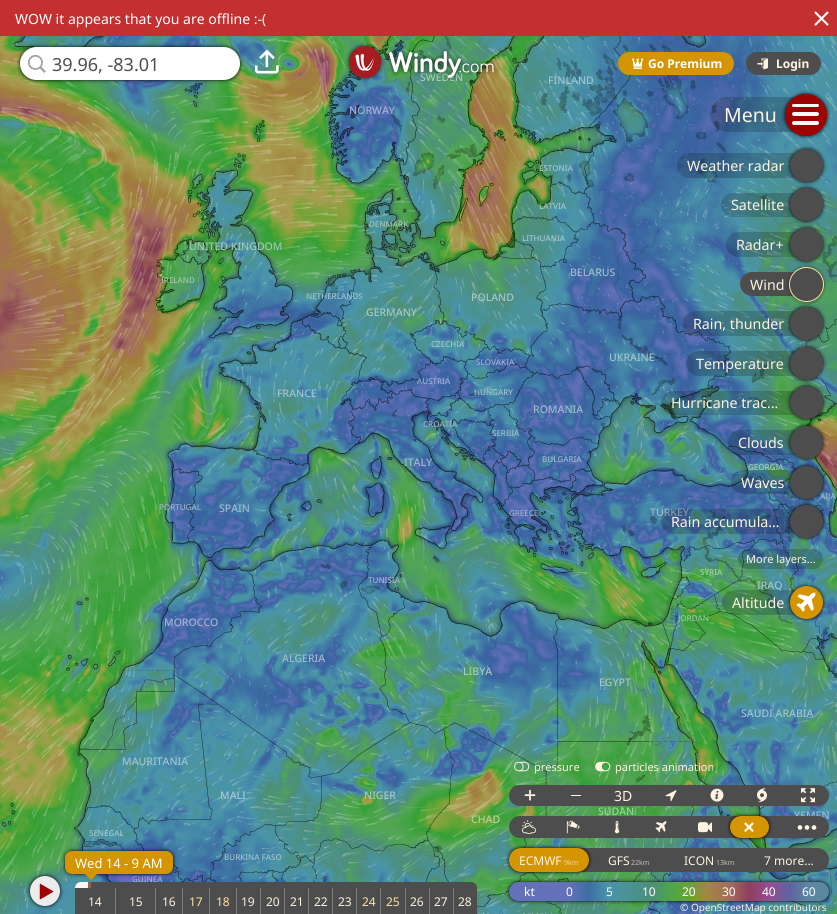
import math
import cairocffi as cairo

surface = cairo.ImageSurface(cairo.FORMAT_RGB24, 837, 914)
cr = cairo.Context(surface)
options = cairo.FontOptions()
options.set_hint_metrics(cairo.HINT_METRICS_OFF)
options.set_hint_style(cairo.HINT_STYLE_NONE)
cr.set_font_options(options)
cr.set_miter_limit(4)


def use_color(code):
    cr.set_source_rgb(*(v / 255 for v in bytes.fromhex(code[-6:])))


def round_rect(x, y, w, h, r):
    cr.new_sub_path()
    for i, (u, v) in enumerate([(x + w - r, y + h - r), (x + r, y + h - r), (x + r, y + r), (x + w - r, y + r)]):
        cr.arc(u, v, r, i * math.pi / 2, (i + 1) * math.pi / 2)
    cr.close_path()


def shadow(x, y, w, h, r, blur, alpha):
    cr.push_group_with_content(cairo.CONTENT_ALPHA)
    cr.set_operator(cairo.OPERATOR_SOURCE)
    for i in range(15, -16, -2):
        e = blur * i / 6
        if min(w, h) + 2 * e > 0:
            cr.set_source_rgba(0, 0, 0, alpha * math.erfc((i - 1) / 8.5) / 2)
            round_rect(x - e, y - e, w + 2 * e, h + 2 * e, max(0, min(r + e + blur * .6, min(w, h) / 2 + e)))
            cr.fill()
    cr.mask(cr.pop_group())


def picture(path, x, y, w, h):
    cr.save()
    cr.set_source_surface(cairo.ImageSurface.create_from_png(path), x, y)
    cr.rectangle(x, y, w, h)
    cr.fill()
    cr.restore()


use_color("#ffffff")
cr.paint()
use_color("#c42f2f")
cr.rectangle(0, 0, 837, 36)
cr.fill()
cr.select_font_face("Noto Sans")
cr.set_font_size(14)
use_color("#ffffff")
cr.move_to(15, 24)
cr.show_text("WOW it appears that you are offline :-(")
picture("img1.png", 814, 11, 15, 15)
picture("img23.png", 0, 36, 17, 194)
picture("img24.png", 17, 36, 256, 194)
picture("img25.png", 273, 36, 256, 194)
picture("img26.png", 529, 36, 256, 194)
picture("img27.png", 785, 36, 52, 194)
picture("img28.png", 0, 230, 17, 256)
picture("img29.png", 17, 230, 256, 256)
picture("img30.png", 273, 230, 256, 256)
picture("img31.png", 529, 230, 256, 256)
picture("img32.png", 785, 230, 52, 256)
picture("img33.png", 0, 486, 17, 256)
picture("img34.png", 17, 486, 256, 256)
picture("img35.png", 273, 486, 256, 256)
picture("img36.png", 529, 486, 256, 256)
picture("img37.png", 785, 486, 52, 256)
picture("img38.png", 0, 742, 17, 172)
picture("img39.png", 17, 742, 256, 172)
picture("img40.png", 273, 742, 256, 172)
picture("img41.png", 529, 742, 256, 172)
picture("img42.png", 785, 742, 52, 172)
picture("img43.png", 0, 36, 837, 878)
picture("img44.png", 11, 36, 6, 15)
picture("img45.png", 17, 36, 248, 194)
use_color("#000000")
shadow(20, 47, 220, 33, 16.5, 2, 1)
use_color("#ffffff")
round_rect(20, 47, 220, 33, 16.5)
cr.fill()
picture("img2.png", 28, 55, 18, 18)
cr.set_font_size(18)
use_color("#4d4d4d")
cr.move_to(52, 71)
cr.show_text("39.96, -83.01")
picture("img3.png", 255, 49, 24, 25)
picture("img46.png", 323, 36, 206, 194)
picture("img4.png", 345, 42, 40, 40)
cr.select_font_face("Noto Sans Medium")
cr.set_font_size(10.5)
use_color("#a7cbb8")
cr.move_to(420, 81)
cr.show_text("SWEDEN")
picture("img5.png", 386, 48, 112, 33)
picture("img47.png", 529, 36, 256, 194)
use_color("#d49500")
round_rect(618, 52, 116, 23, 11.5)
cr.fill()
picture("img6.png", 632, 58, 12, 11)
cr.select_font_face("Noto Sans", cairo.FONT_SLANT_NORMAL, cairo.FONT_WEIGHT_BOLD)
cr.set_font_size(12)
use_color("#ffffff")
cr.move_to(648, 68)
cr.show_text("Go Premium")
use_color("#4d4d4d")
round_rect(746, 52, 75, 23, 11.5)
cr.fill()
picture("img7.png", 757, 58, 11, 12)
use_color("#fff3e1")
cr.move_to(776, 68)
cr.show_text("Login")
cr.set_source_rgba(0, 0, 0, 0.18)
cr.new_path()
cr.move_to(727.5, 97)
cr.line_to(805, 97)
cr.line_to(805, 132)
cr.line_to(727.5, 132)
cr.curve_to(718, 132, 710, 124, 710, 114.5)
cr.curve_to(710, 105, 718, 97, 727.5, 97)
cr.close_path()
cr.fill()
cr.select_font_face("Noto Sans")
cr.set_font_size(19.5)
use_color("#fff3e1")
cr.move_to(724, 122)
cr.show_text("Menu")
use_color("#000000")
shadow(785, 94, 42, 42, 21, 2, 1)
use_color("#9d0300")
cr.arc(806, 115, 21, 0, 2 * math.pi)
cr.fill()
use_color("#f8f8f8")
round_rect(792, 104, 27, 3, 1.5)
cr.fill()
round_rect(792, 112, 27, 4, 2)
cr.fill()
round_rect(792, 121, 27, 4, 2)
cr.fill()
cr.set_source_rgba(0, 0, 0, 0.18)
cr.new_path()
cr.move_to(689.5, 153)
cr.line_to(804, 153)
cr.line_to(804, 178)
cr.line_to(689.5, 178)
cr.curve_to(682.5, 178, 677, 172.5, 677, 165.5)
cr.curve_to(677, 158.5, 682.5, 153, 689.5, 153)
cr.close_path()
cr.fill()
cr.set_font_size(14.25)
use_color("#fff3e1")
cr.move_to(687, 171)
cr.show_text("Weather radar")
use_color("#000000")
shadow(790, 149, 33, 33, 16.5, 2, 1)
use_color("#4d4d4d")
cr.arc(806.5, 165.5, 16.5, 0, 2 * math.pi)
cr.fill()
cr.set_source_rgba(0, 0, 0, 0.18)
cr.new_path()
cr.move_to(733, 193)
cr.line_to(804, 193)
cr.line_to(804, 217)
cr.line_to(733, 217)
cr.curve_to(726.5, 217, 721, 211.5, 721, 205)
cr.curve_to(721, 198.5, 726.5, 193, 733, 193)
cr.close_path()
cr.fill()
use_color("#fff3e1")
cr.move_to(731, 210)
cr.show_text("Satellite")
picture("img48.png", 785, 219, 46, 11)
use_color("#000000")
shadow(790, 188, 33, 33, 16.5, 2, 1)
use_color("#4d4d4d")
cr.arc(806.5, 204.5, 16.5, 0, 2 * math.pi)
cr.fill()
picture("img51.png", 529, 230, 256, 256)
picture("img52.png", 785, 230, 52, 256)
cr.set_source_rgba(0, 0, 0, 0.18)
cr.new_path()
cr.move_to(738.5, 232)
cr.line_to(804, 232)
cr.line_to(804, 257)
cr.line_to(738.5, 257)
cr.curve_to(731.5, 257, 726, 251.5, 726, 244.5)
cr.curve_to(726, 237.5, 731.5, 232, 738.5, 232)
cr.close_path()
cr.fill()
use_color("#fff3e1")
cr.move_to(736, 250)
cr.show_text("Radar+")
use_color("#000000")
shadow(790, 228, 33, 33, 16.5, 2, 1)
use_color("#4d4d4d")
cr.arc(806.5, 244.5, 16.5, 0, 2 * math.pi)
cr.fill()
cr.new_path()
cr.move_to(752, 272)
cr.line_to(804, 272)
cr.line_to(804, 296)
cr.line_to(752, 296)
cr.curve_to(745.5, 296, 740, 290.5, 740, 284)
cr.curve_to(740, 277.5, 745.5, 272, 752, 272)
cr.close_path()
cr.fill()
use_color("#fff3e1")
cr.move_to(750, 290)
cr.show_text("Wind")
use_color("#000000")
shadow(790, 268, 33, 33, 16.5, 2, 1)
use_color("#4d4d4d")
cr.arc(806.5, 284.5, 17, 0, 2 * math.pi)
cr.fill_preserve()
use_color("#ffe3a1")
cr.set_line_width(1)
cr.stroke()
cr.set_source_rgba(0, 0, 0, 0.18)
cr.new_path()
cr.move_to(695.5, 311)
cr.line_to(804, 311)
cr.line_to(804, 336)
cr.line_to(695.5, 336)
cr.curve_to(688.5, 336, 683, 330.5, 683, 323.5)
cr.curve_to(683, 316.5, 688.5, 311, 695.5, 311)
cr.close_path()
cr.fill()
use_color("#fff3e1")
cr.move_to(693, 329)
cr.show_text("Rain, thunder")
use_color("#000000")
shadow(790, 307, 33, 33, 16.5, 2, 1)
use_color("#4d4d4d")
cr.arc(806.5, 323.5, 16.5, 0, 2 * math.pi)
cr.fill()
cr.set_source_rgba(0, 0, 0, 0.18)
cr.new_path()
cr.move_to(698.5, 351)
cr.line_to(804, 351)
cr.line_to(804, 376)
cr.line_to(698.5, 376)
cr.curve_to(691.5, 376, 686, 370.5, 686, 363.5)
cr.curve_to(686, 356.5, 691.5, 351, 698.5, 351)
cr.close_path()
cr.fill()
use_color("#fff3e1")
cr.move_to(696, 369)
cr.show_text("Temperature")
use_color("#000000")
shadow(790, 347, 33, 33, 16.5, 2, 1)
use_color("#4d4d4d")
cr.arc(806.5, 363.5, 16.5, 0, 2 * math.pi)
cr.fill()
cr.set_source_rgba(0, 0, 0, 0.18)
cr.new_path()
cr.move_to(673, 391)
cr.line_to(804, 391)
cr.line_to(804, 415)
cr.line_to(673, 415)
cr.curve_to(666.5, 415, 661, 409.5, 661, 403)
cr.curve_to(661, 396.5, 666.5, 391, 673, 391)
cr.close_path()
cr.fill()
use_color("#fff3e1")
cr.move_to(671, 408)
cr.show_text("Hurricane trac…")
use_color("#000000")
shadow(790, 386, 33, 33, 16.5, 2, 1)
use_color("#4d4d4d")
cr.arc(806.5, 402.5, 16.5, 0, 2 * math.pi)
cr.fill()
cr.set_source_rgba(0, 0, 0, 0.18)
cr.new_path()
cr.move_to(740.5, 430)
cr.line_to(804, 430)
cr.line_to(804, 455)
cr.line_to(740.5, 455)
cr.curve_to(733.5, 455, 728, 449.5, 728, 442.5)
cr.curve_to(728, 435.5, 733.5, 430, 740.5, 430)
cr.close_path()
cr.fill()
use_color("#fff3e1")
cr.move_to(738, 448)
cr.show_text("Clouds")
use_color("#000000")
shadow(790, 426, 33, 33, 16.5, 2, 1)
use_color("#4d4d4d")
cr.arc(806.5, 442.5, 16.5, 0, 2 * math.pi)
cr.fill()
picture("img55.png", 529, 486, 256, 256)
picture("img56.png", 785, 486, 52, 193)
cr.select_font_face("Noto Sans Medium")
cr.set_font_size(8)
use_color("#a7c8c2")
cr.move_to(748, 470)
cr.show_text("GEORGIA")
cr.set_source_rgba(0, 0, 0, 0.18)
cr.new_path()
cr.move_to(743, 470)
cr.line_to(804, 470)
cr.line_to(804, 494)
cr.line_to(743, 494)
cr.curve_to(736.5, 494, 731, 488.5, 731, 482)
cr.curve_to(731, 475.5, 736.5, 470, 743, 470)
cr.close_path()
cr.fill()
cr.select_font_face("Noto Sans")
cr.set_font_size(14.25)
use_color("#fff3e1")
cr.move_to(741, 488)
cr.show_text("Waves")
use_color("#000000")
shadow(790, 466, 33, 33, 16.5, 2, 1)
cr.select_font_face("Noto Sans Medium")
cr.set_font_size(8)
use_color("#a0bad0")
cr.move_to(820, 499)
cr.show_text("AIJA")
use_color("#4d4d4d")
cr.new_path()
cr.arc(806.5, 482.5, 16.5, 0, 2 * math.pi)
cr.fill()
cr.set_font_size(10.5)
use_color("#a0bad0")
cr.move_to(650, 516)
cr.show_text("TURKEY")
cr.set_source_rgba(0, 0, 0, 0.18)
cr.new_path()
cr.move_to(673.5, 509)
cr.line_to(804, 509)
cr.line_to(804, 534)
cr.line_to(673.5, 534)
cr.curve_to(666.5, 534, 661, 528.5, 661, 521.5)
cr.curve_to(661, 514.5, 666.5, 509, 673.5, 509)
cr.close_path()
cr.fill()
cr.select_font_face("Noto Sans")
cr.set_font_size(14.25)
use_color("#fff3e1")
cr.move_to(671, 527)
cr.show_text("Rain accumula…")
use_color("#000000")
shadow(790, 505, 33, 33, 16.5, 2, 1)
use_color("#4d4d4d")
cr.arc(806.5, 521.5, 16.5, 0, 2 * math.pi)
cr.fill()
cr.set_source_rgba(0, 0, 0, 0.18)
round_rect(738, 549, 85, 20, 10)
cr.fill()
cr.set_font_size(11)
use_color("#fff3e1")
cr.move_to(746, 563)
cr.show_text("More layers...")
cr.select_font_face("Noto Sans Medium")
cr.set_font_size(10.5)
use_color("#a7c8c2")
cr.move_to(757, 589)
cr.show_text("IRAQ")
cr.set_source_rgba(0, 0, 0, 0.18)
cr.new_path()
cr.move_to(734.5, 590)
cr.line_to(804, 590)
cr.line_to(804, 615)
cr.line_to(734.5, 615)
cr.curve_to(727.5, 615, 722, 609.5, 722, 602.5)
cr.curve_to(722, 595.5, 727.5, 590, 734.5, 590)
cr.close_path()
cr.fill()
cr.select_font_face("Noto Sans")
cr.set_font_size(14.25)
use_color("#fff3e1")
cr.move_to(732, 608)
cr.show_text("Altitude")
use_color("#000000")
shadow(790, 586, 33, 33, 16.5, 2, 1)
use_color("#d49500")
cr.arc(806.5, 602.5, 16.5, 0, 2 * math.pi)
cr.fill()
picture("img8.png", 796, 592, 20, 20)
picture("img59.png", 273, 742, 256, 166)
picture("img60.png", 529, 742, 256, 172)
picture("img9.png", 514, 761, 16, 11)
cr.set_font_size(11)
use_color("#fff3e1")
cr.move_to(534, 771)
cr.show_text("pressure")
picture("img10.png", 595, 761, 16, 11)
cr.move_to(615, 771)
cr.show_text("particles animation")
picture("img61.png", 785, 781, 52, 133)
use_color("#4d4d4d")
round_rect(509, 785, 320, 21, 10.5)
cr.fill()
picture("img11.png", 524, 789, 12, 12)
use_color("#fff3e1")
cr.rectangle(571, 795, 10, 1)
cr.fill()
cr.set_font_size(14)
cr.move_to(614, 801)
cr.show_text("3D")
picture("img12.png", 665, 790, 12, 12)
picture("img13.png", 710, 788, 14, 14)
picture("img14.png", 757, 788, 10, 15)
picture("img15.png", 801, 788, 14, 15)
cr.select_font_face("Noto Sans Medium")
cr.set_font_size(10.5)
use_color("#a0bad0")
cr.move_to(794, 819)
cr.show_text("YEMEN")
use_color("#4d4d4d")
round_rect(509, 816, 320, 22, 11)
cr.fill()
picture("img16.png", 522, 820, 14, 15)
picture("img17.png", 566, 820, 14, 14)
picture("img18.png", 614, 821, 6, 13)
picture("img19.png", 655, 821, 12, 12)
picture("img20.png", 698, 822, 14, 11)
use_color("#000000")
shadow(730, 816, 39, 22, 11, 2, 1)
use_color("#d49500")
round_rect(730, 816, 39, 22, 11)
cr.fill()
picture("img21.png", 744, 822, 10, 10)
picture("img22.png", 797, 825, 20, 5)
use_color("#4d4d4d")
round_rect(509, 848, 320, 24, 12)
cr.fill()
use_color("#000000")
shadow(509, 848, 80, 24, 12, 2, 1)
use_color("#d49500")
round_rect(509, 848, 80, 24, 12)
cr.fill()
cr.select_font_face("Noto Sans")
cr.set_font_size(12)
use_color("#fff3e1")
cr.move_to(519, 865)
cr.show_text("ECMWF")
cr.set_font_size(7)
use_color("#f2d79e")
cr.move_to(564, 865)
cr.show_text("9km")
cr.set_font_size(12)
use_color("#fff3e1")
cr.move_to(608, 865)
cr.show_text("GFS")
cr.set_font_size(7)
use_color("#cac1b5")
cr.move_to(631, 865)
cr.show_text("22km")
cr.set_font_size(12)
use_color("#fff3e1")
cr.move_to(684, 865)
cr.show_text("ICON")
cr.set_font_size(7)
use_color("#cac1b5")
cr.move_to(716, 865)
cr.show_text("13km")
cr.set_font_size(12)
use_color("#fff3e1")
cr.move_to(764, 865)
cr.show_text("7 more...")
use_color("#000000")
shadow(509, 882, 320, 19, 9.5, 2, 1)
gradient = cairo.LinearGradient(509, 892, 829, 892)
gradient.add_color_stop_rgba(0, 0.384, 0.443, 0.722, 1)
gradient.add_color_stop_rgba(0.19, 0.384, 0.443, 0.722, 1)
gradient.add_color_stop_rgba(0.25, 0.239, 0.431, 0.639, 1)
gradient.add_color_stop_rgba(0.31, 0.29, 0.58, 0.667, 1)
gradient.add_color_stop_rgba(0.38, 0.29, 0.573, 0.58, 1)
gradient.add_color_stop_rgba(0.44, 0.302, 0.557, 0.486, 1)
gradient.add_color_stop_rgba(0.5, 0.298, 0.643, 0.298, 1)
gradient.add_color_stop_rgba(0.56, 0.404, 0.643, 0.212, 1)
gradient.add_color_stop_rgba(0.62, 0.635, 0.529, 0.251, 1)
gradient.add_color_stop_rgba(0.69, 0.635, 0.427, 0.361, 1)
gradient.add_color_stop_rgba(0.75, 0.553, 0.247, 0.361, 1)
gradient.add_color_stop_rgba(0.81, 0.592, 0.294, 0.569, 1)
gradient.add_color_stop_rgba(0.88, 0.373, 0.392, 0.627, 1)
gradient.add_color_stop_rgba(0.94, 0.357, 0.533, 0.631, 1)
gradient.add_color_stop_rgba(1, 0.357, 0.533, 0.631, 1)
cr.set_source(gradient)
round_rect(509, 882, 320, 19, 9.5)
cr.fill()
use_color("#ffffff")
cr.move_to(524, 896)
cr.show_text("kt")
cr.move_to(566, 896)
cr.show_text("0")
cr.move_to(606, 896)
cr.show_text("5")
cr.move_to(642, 896)
cr.show_text("10")
cr.move_to(682, 896)
cr.show_text("20")
cr.move_to(722, 896)
cr.show_text("30")
cr.move_to(762, 896)
cr.show_text("40")
cr.move_to(802, 896)
cr.show_text("60")
picture("img49.png", 153, 230, 120, 256)
picture("img50.png", 273, 230, 256, 256)
picture("img53.png", 66, 486, 207, 256)
picture("img54.png", 273, 486, 256, 256)
picture("img57.png", 0, 802, 17, 28)
picture("img58.png", 72, 742, 201, 140)
cr.select_font_face("Noto Sans Medium")
cr.set_font_size(10.5)
use_color("#a3b2d2")
cr.move_to(349, 114)
cr.show_text("NORWAY")
cr.set_font_size(8)
use_color("#a2c3ba")
cr.move_to(369, 227)
cr.show_text("DENMARK")
cr.set_font_size(10.5)
use_color("#a2c3ce")
cr.move_to(548, 84)
cr.show_text("FINLAND")
cr.set_font_size(8)
use_color("#a7c8c2")
cr.move_to(539, 171)
cr.show_text("ESTONIA")
cr.move_to(539, 209)
cr.show_text("LATVIA")
cr.set_font_size(10.5)
use_color("#a1c8b3")
cr.move_to(189, 250)
cr.show_text("UNITED KINGDOM")
cr.set_font_size(8)
use_color("#a5c8a8")
cr.move_to(161, 283)
cr.show_text("IRELAND")
use_color("#a5c9c9")
cr.move_to(522, 241)
cr.show_text("LITHUANIA")
cr.set_font_size(10.5)
use_color("#a0bad0")
cr.move_to(570, 276)
cr.show_text("BELARUS")
use_color("#a2c3ce")
cr.move_to(609, 361)
cr.show_text("UKRAINE")
use_color("#a0bad0")
cr.move_to(533, 413)
cr.show_text("ROMANIA")
cr.set_font_size(8)
cr.move_to(542, 462)
cr.show_text("BULGARIA")
use_color("#a2c3ce")
cr.move_to(306, 299)
cr.show_text("NETHERLANDS")
cr.set_font_size(10.5)
use_color("#a7c8c2")
cr.move_to(471, 301)
cr.show_text("POLAND")
cr.move_to(366, 316)
cr.show_text("GERMANY")
cr.set_font_size(8)
use_color("#a5c9d1")
cr.move_to(431, 347)
cr.show_text("CZECHIA")
use_color("#a3b2d2")
cr.move_to(476, 365)
cr.show_text("SLOVAKIA")
cr.move_to(417, 384)
cr.show_text("AUSTRIA")
cr.set_font_size(10.5)
use_color("#a2c3ce")
cr.move_to(277, 397)
cr.show_text("FRANCE")
cr.set_font_size(8)
cr.move_to(474, 395)
cr.show_text("HUNGARY")
use_color("#9cb7c2")
cr.move_to(423, 427)
cr.show_text("CROATIA")
use_color("#a0bad0")
cr.move_to(492, 436)
cr.show_text("SERBIA")
cr.set_font_size(10.5)
cr.move_to(404, 466)
cr.show_text("ITALY")
cr.set_font_size(8)
use_color("#9cb7c2")
cr.move_to(159, 510)
cr.show_text("PORTUGAL")
cr.set_font_size(10.5)
use_color("#a0bad0")
cr.move_to(219, 512)
cr.show_text("SPAIN")
use_color("#a3b2d2")
cr.move_to(164, 626)
cr.show_text("MOROCCO")
cr.set_font_size(8)
cr.move_to(509, 516)
cr.show_text("GREECE")
use_color("#a2b7ca")
cr.move_to(368, 583)
cr.show_text("TUNISIA")
cr.set_font_size(10.5)
use_color("#a0bad0")
cr.move_to(282, 662)
cr.show_text("ALGERIA")
use_color("#a7c8c2")
cr.move_to(463, 675)
cr.show_text("LIBYA")
cr.set_font_size(8)
use_color("#a7d1ab")
cr.move_to(700, 575)
cr.show_text("SYRIA")
use_color("#9ecba4")
cr.move_to(678, 621)
cr.show_text("JORDAN")
cr.set_font_size(10.5)
use_color("#a7c8c2")
cr.move_to(599, 686)
cr.show_text("EGYPT")
use_color("#a2c3ce")
cr.move_to(741, 717)
cr.show_text("SAUDI ARABIA")
cr.move_to(122, 765)
cr.show_text("MAURITANIA")
use_color("#a5c9d1")
cr.move_to(220, 799)
cr.show_text("MALI")
cr.set_font_size(8)
cr.move_to(89, 836)
cr.show_text("SENEGAL")
use_color("#a2c3ce")
cr.move_to(224, 860)
cr.show_text("BURKINA FASO")
use_color("#a3b2d2")
cr.move_to(132, 882)
cr.show_text("GUINEA")
cr.set_font_size(10.5)
use_color("#a7c8c2")
cr.move_to(364, 799)
cr.show_text("NIGER")
use_color("#b1d29c")
cr.move_to(471, 823)
cr.show_text("CHAD")
use_color("#a1d1a1")
cr.move_to(598, 815)
cr.show_text("SUDAN")
use_color("#000000")
shadow(30, 876, 30, 30, 15, 2, 1)
use_color("#ececec")
cr.arc(45, 891, 15, 0, 2 * math.pi)
cr.fill()
picture("img62.png", 39, 883, 15, 17)
use_color("#000000")
shadow(65, 851, 108, 23, 7, 2, 1)
use_color("#d49500")
round_rect(65, 851, 108, 23, 7)
cr.fill()
cr.select_font_face("Noto Sans")
cr.set_font_size(13)
use_color("#ffffff")
cr.move_to(75, 868)
cr.show_text("Wed 14 - 9 AM")
use_color("#d49500")
cr.new_path()
cr.move_to(85, 874)
cr.line_to(97, 874)
cr.line_to(91, 880)
cr.close_path()
cr.fill()
use_color("#4d4d4d")
cr.new_path()
cr.move_to(81, 882)
cr.line_to(471, 882)
cr.curve_to(474.5, 882, 477, 884.5, 477, 888)
cr.line_to(75, 888)
cr.curve_to(75, 884.5, 77.5, 882, 81, 882)
cr.close_path()
cr.fill()
use_color("#f8f8f8")
cr.new_path()
cr.move_to(81, 882)
cr.line_to(90, 882)
cr.line_to(90, 888)
cr.line_to(75, 888)
cr.curve_to(75, 884.5, 77.5, 882, 81, 882)
cr.close_path()
cr.fill()
use_color("#946051")
cr.rectangle(88, 882, 3, 6)
cr.fill()
use_color("#4d4d4d")
cr.rectangle(75, 888, 402, 26)
cr.fill()
cr.set_font_size(12)
use_color("#fff3e1")
cr.move_to(88, 906)
cr.show_text("14")
use_color("#7e7e7e")
cr.rectangle(115, 888, 1, 26)
cr.fill()
use_color("#fff3e1")
cr.move_to(129, 906)
cr.show_text("15")
use_color("#7e7e7e")
cr.rectangle(155, 888, 1, 26)
cr.fill()
use_color("#fff3e1")
cr.move_to(162, 906)
cr.show_text("16")
use_color("#7e7e7e")
cr.rectangle(182, 888, 1, 26)
cr.fill()
use_color("#ffe3a1")
cr.move_to(189, 906)
cr.show_text("17")
use_color("#7e7e7e")
cr.rectangle(209, 888, 1, 26)
cr.fill()
use_color("#ffe3a1")
cr.move_to(216, 906)
cr.show_text("18")
use_color("#7e7e7e")
cr.rectangle(236, 888, 1, 26)
cr.fill()
use_color("#fff3e1")
cr.move_to(241, 906)
cr.show_text("19")
use_color("#7e7e7e")
cr.rectangle(260, 888, 1, 26)
cr.fill()
use_color("#fff3e1")
cr.move_to(266, 906)
cr.show_text("20")
use_color("#7e7e7e")
cr.rectangle(284, 888, 1, 26)
cr.fill()
use_color("#fff3e1")
cr.move_to(290, 906)
cr.show_text("21")
use_color("#7e7e7e")
cr.rectangle(308, 888, 1, 26)
cr.fill()
use_color("#fff3e1")
cr.move_to(314, 906)
cr.show_text("22")
use_color("#7e7e7e")
cr.rectangle(332, 888, 1, 26)
cr.fill()
use_color("#fff3e1")
cr.move_to(338, 906)
cr.show_text("23")
use_color("#7e7e7e")
cr.rectangle(356, 888, 1, 26)
cr.fill()
use_color("#ffe3a1")
cr.move_to(362, 906)
cr.show_text("24")
use_color("#7e7e7e")
cr.rectangle(380, 888, 1, 26)
cr.fill()
use_color("#ffe3a1")
cr.move_to(386, 906)
cr.show_text("25")
use_color("#7e7e7e")
cr.rectangle(405, 888, 1, 26)
cr.fill()
use_color("#fff3e1")
cr.move_to(410, 906)
cr.show_text("26")
use_color("#7e7e7e")
cr.rectangle(429, 888, 1, 26)
cr.fill()
use_color("#fff3e1")
cr.move_to(434, 906)
cr.show_text("27")
use_color("#7e7e7e")
cr.rectangle(453, 888, 1, 26)
cr.fill()
use_color("#fff3e1")
cr.move_to(458, 906)
cr.show_text("28")
cr.set_font_size(10)
cr.move_to(680, 911)
cr.show_text("© OpenStreetMap contributors")
surface.write_to_png("result.png")
